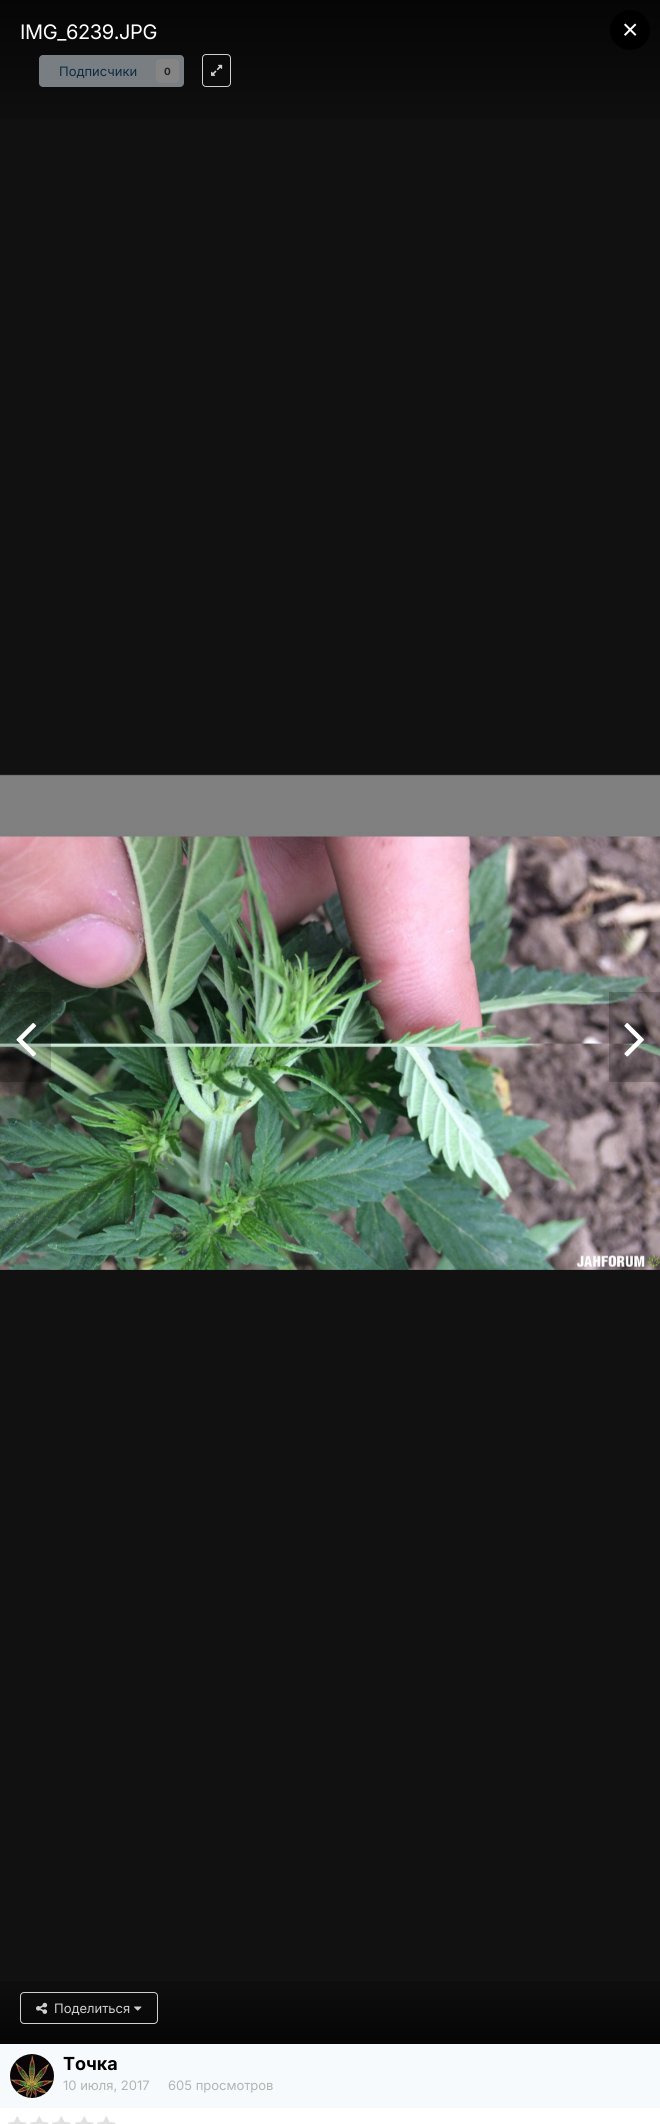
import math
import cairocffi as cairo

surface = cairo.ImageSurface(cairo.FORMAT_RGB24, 660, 2124)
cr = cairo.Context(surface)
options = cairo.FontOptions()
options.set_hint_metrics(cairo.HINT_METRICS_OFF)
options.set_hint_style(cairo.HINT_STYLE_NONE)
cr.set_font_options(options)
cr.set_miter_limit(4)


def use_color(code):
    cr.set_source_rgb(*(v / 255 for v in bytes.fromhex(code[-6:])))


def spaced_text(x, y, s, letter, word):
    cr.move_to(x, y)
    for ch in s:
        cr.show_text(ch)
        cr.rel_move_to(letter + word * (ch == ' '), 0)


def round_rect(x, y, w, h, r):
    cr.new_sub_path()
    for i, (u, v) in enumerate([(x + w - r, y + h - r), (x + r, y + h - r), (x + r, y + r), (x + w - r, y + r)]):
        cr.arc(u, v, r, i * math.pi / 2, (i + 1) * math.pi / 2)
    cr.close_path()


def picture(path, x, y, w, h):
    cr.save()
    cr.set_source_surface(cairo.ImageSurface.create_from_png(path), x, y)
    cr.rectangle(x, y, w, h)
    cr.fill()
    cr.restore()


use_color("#111111")
cr.paint()
gradient = cairo.LinearGradient(330, 0, 330, 150)
gradient.add_color_stop_rgba(0, 0.02, 0.02, 0.02, 1)
gradient.add_color_stop_rgba(1, 0.067, 0.067, 0.067, 1)
cr.set_source(gradient)
cr.rectangle(0, 0, 660, 119)
cr.fill()
cr.select_font_face("Inter")
cr.set_font_size(20)
use_color("#ffffff")
spaced_text(20, 39, "IMG_6239.JPG", -0.4, 0)
cr.set_source_rgba(0.91, 0.949, 0.98, 0.5)
round_rect(39, 55, 145, 32, 4)
cr.fill()
cr.set_font_size(13)
use_color("#0c2b42")
cr.move_to(59, 76)
cr.show_text("Подписчики")
use_color("#7c7e81")
cr.new_path()
cr.move_to(156, 64)
cr.line_to(156, 78)
cr.line_to(151, 71)
cr.close_path()
cr.fill()
use_color("#858585")
round_rect(156, 59, 23, 24, 4)
cr.fill()
cr.select_font_face("Inter", cairo.FONT_SLANT_NORMAL, cairo.FONT_WEIGHT_BOLD)
cr.set_font_size(10)
use_color("#202326")
cr.move_to(164, 75)
cr.show_text("0")
round_rect(202.5, 54.5, 28, 32, 3.5)
use_color("#d0d0d0")
cr.set_line_width(1)
cr.stroke()
picture("img1.png", 211, 64, 12, 12)
gradient = cairo.LinearGradient(330, 1964, 330, 2044)
gradient.add_color_stop_rgba(0, 0.067, 0.067, 0.067, 1)
gradient.add_color_stop_rgba(1, 0.02, 0.02, 0.02, 1)
cr.set_source(gradient)
cr.rectangle(0, 1981, 660, 63)
cr.fill()
round_rect(20.5, 1992.5, 137, 31, 3.5)
use_color("#d0d0d0")
cr.stroke()
picture("img2.png", 36, 2002, 12, 12)
cr.select_font_face("Inter")
cr.set_font_size(13)
cr.move_to(54, 2013)
cr.show_text("Поделиться")
picture("img3.png", 134, 2006, 8, 5)
picture("img4.png", 0, 774, 660, 496)
cr.set_source_rgba(0, 0, 0, 0.2)
cr.rectangle(0, 992, 51, 90)
cr.fill()
picture("img5.png", 16, 1023, 20, 34)
cr.rectangle(609, 992, 51, 90)
cr.fill()
picture("img6.png", 624, 1023, 20, 34)
use_color("#ffffff")
cr.rectangle(0, 2108, 660, 16)
cr.fill()
use_color("#f7fafc")
cr.rectangle(0, 2044, 660, 64)
cr.fill()
use_color("#ffffff")
cr.arc(32, 2076, 22, 0, 2 * math.pi)
cr.fill()
picture("img7.png", 10, 2054, 44, 44)
cr.select_font_face("Inter", cairo.FONT_SLANT_NORMAL, cairo.FONT_WEIGHT_BOLD)
cr.set_font_size(18)
use_color("#000000")
cr.move_to(63, 2070)
cr.show_text("Точка")
cr.select_font_face("Inter")
cr.set_font_size(13)
use_color("#b3b3b3")
cr.move_to(63, 2090)
cr.show_text("10 июля, 2017")
cr.move_to(168, 2090)
cr.show_text("605 просмотров")
picture("img8.png", 8, 2116, 19, 8)
picture("img8.png", 30, 2116, 19, 8)
picture("img8.png", 52, 2116, 19, 8)
picture("img8.png", 75, 2116, 19, 8)
picture("img8.png", 97, 2116, 19, 8)
use_color("#000000")
cr.arc(630, 30, 20, 0, 2 * math.pi)
cr.fill()
cr.select_font_face("Liberation Sans")
cr.set_font_size(28)
use_color("#ffffff")
cr.move_to(622, 39)
cr.show_text("×")
surface.write_to_png("result.png")
